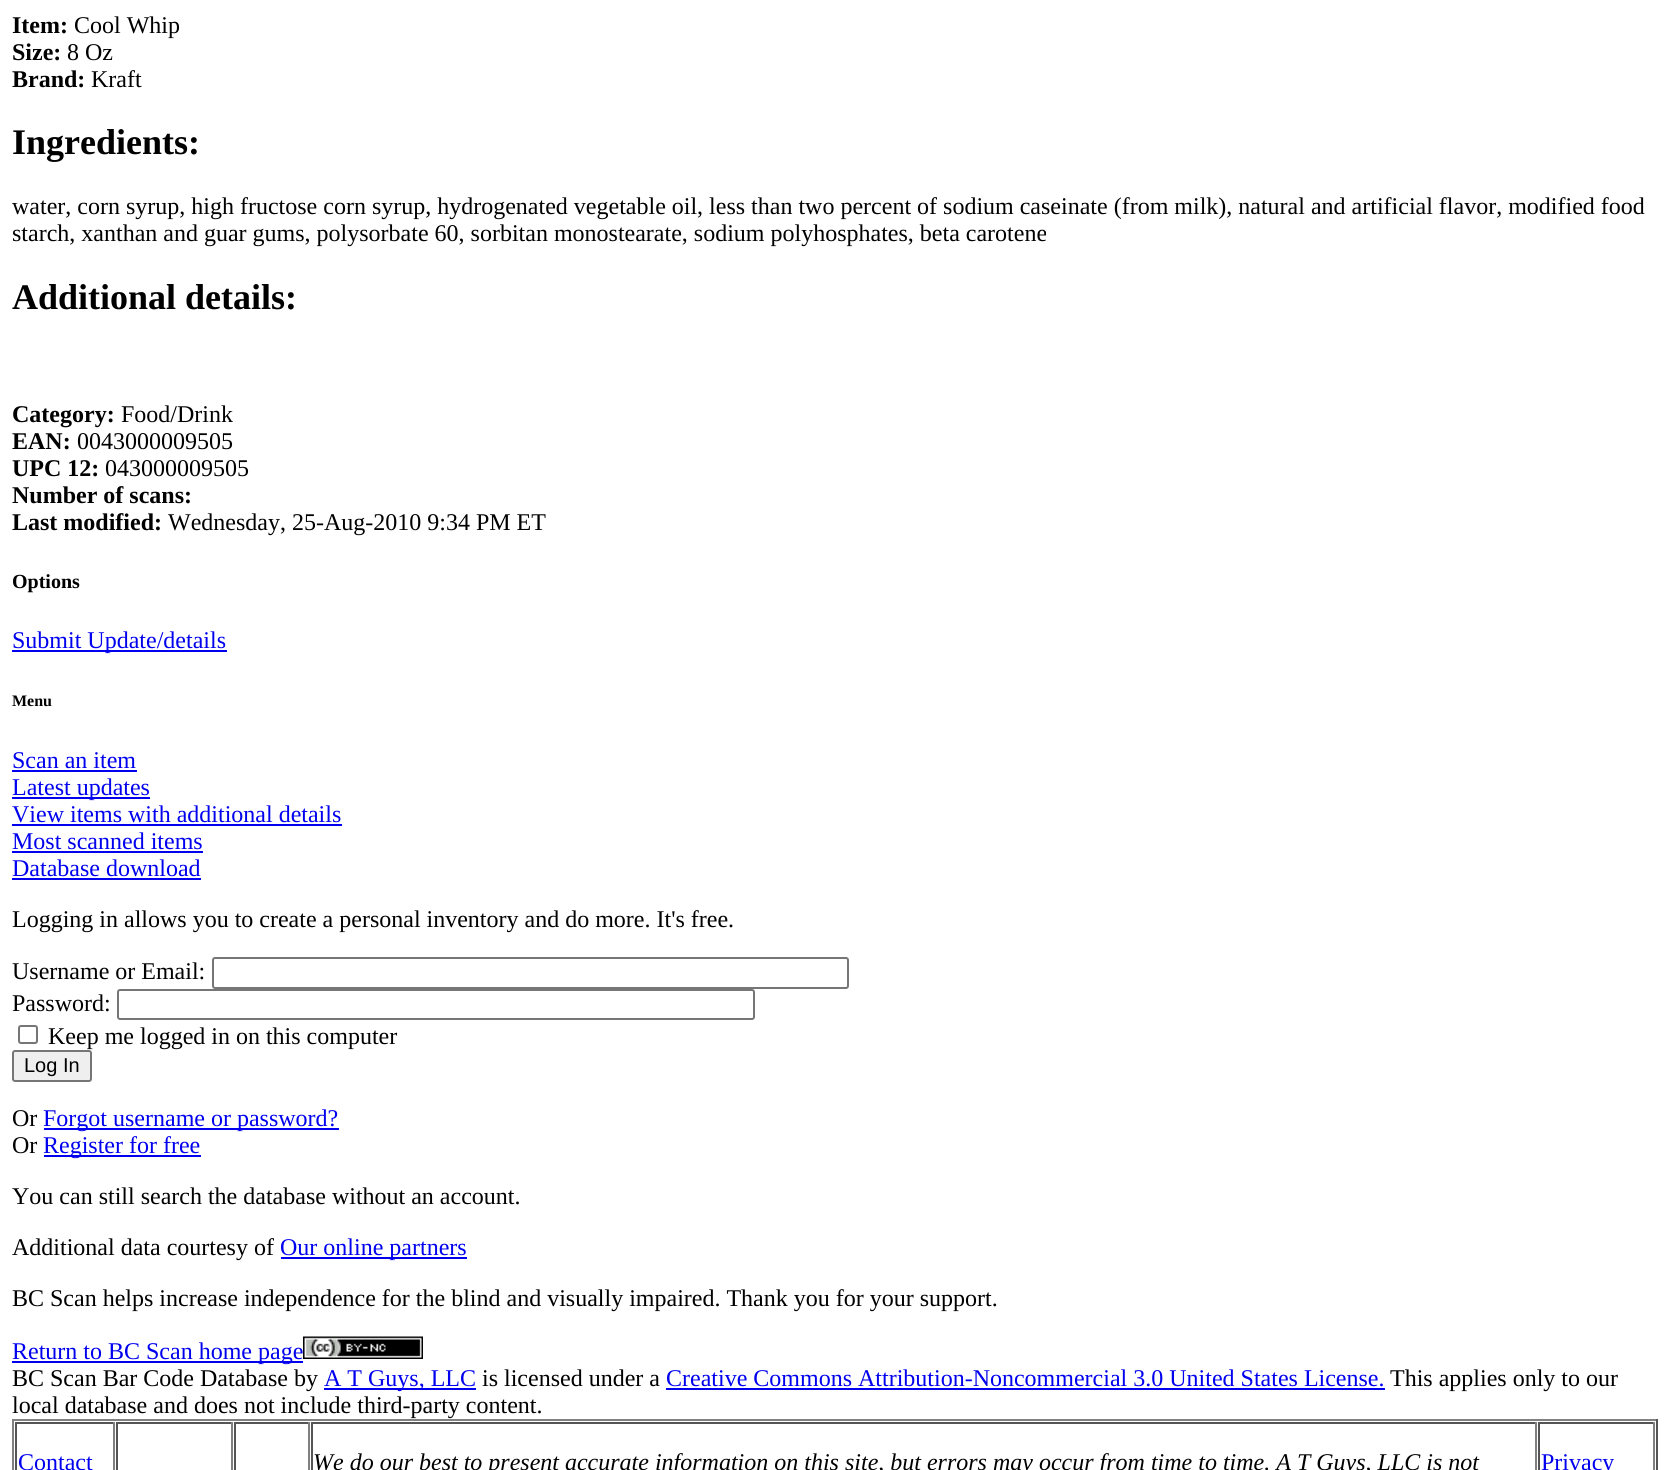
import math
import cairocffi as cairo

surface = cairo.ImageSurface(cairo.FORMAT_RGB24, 1669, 1470)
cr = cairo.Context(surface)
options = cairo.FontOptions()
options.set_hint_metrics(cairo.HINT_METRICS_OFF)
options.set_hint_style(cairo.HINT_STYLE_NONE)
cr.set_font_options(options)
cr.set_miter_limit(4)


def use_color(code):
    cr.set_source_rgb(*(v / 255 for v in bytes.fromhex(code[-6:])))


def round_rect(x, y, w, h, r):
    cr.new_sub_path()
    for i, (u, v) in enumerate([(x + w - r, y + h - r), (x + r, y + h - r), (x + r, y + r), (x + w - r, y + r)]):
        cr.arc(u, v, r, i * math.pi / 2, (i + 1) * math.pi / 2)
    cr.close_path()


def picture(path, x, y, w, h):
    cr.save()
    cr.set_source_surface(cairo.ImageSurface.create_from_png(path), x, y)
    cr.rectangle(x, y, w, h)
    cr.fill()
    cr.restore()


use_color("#ffffff")
cr.paint()
cr.select_font_face("Liberation Serif", cairo.FONT_SLANT_NORMAL, cairo.FONT_WEIGHT_BOLD)
cr.set_font_size(24)
use_color("#000000")
cr.move_to(12, 33)
cr.show_text("Item:")
cr.select_font_face("Liberation Serif")
cr.move_to(74, 33)
cr.show_text("Cool Whip")
cr.select_font_face("Liberation Serif", cairo.FONT_SLANT_NORMAL, cairo.FONT_WEIGHT_BOLD)
cr.move_to(12, 60)
cr.show_text("Size:")
cr.select_font_face("Liberation Serif")
cr.move_to(67, 60)
cr.show_text("8 Oz")
cr.select_font_face("Liberation Serif", cairo.FONT_SLANT_NORMAL, cairo.FONT_WEIGHT_BOLD)
cr.move_to(12, 87)
cr.show_text("Brand:")
cr.select_font_face("Liberation Serif")
cr.move_to(91, 87)
cr.show_text("Kraft")
cr.select_font_face("Liberation Serif", cairo.FONT_SLANT_NORMAL, cairo.FONT_WEIGHT_BOLD)
cr.set_font_size(36)
cr.move_to(12, 154)
cr.show_text("Ingredients:")
cr.select_font_face("Liberation Serif")
cr.set_font_size(24)
cr.move_to(12, 214)
cr.show_text("water, corn syrup, high fructose corn syrup, hydrogenated vegetable oil, less than two percent of sodium caseinate (from milk), natural and artificial flavor, modified food")
cr.move_to(12, 241)
cr.show_text("starch, xanthan and guar gums, polysorbate 60, sorbitan monostearate, sodium polyhosphates, beta carotene")
cr.select_font_face("Liberation Serif", cairo.FONT_SLANT_NORMAL, cairo.FONT_WEIGHT_BOLD)
cr.set_font_size(36)
cr.move_to(12, 309)
cr.show_text("Additional details:")
cr.set_font_size(24)
cr.move_to(12, 422)
cr.show_text("Category:")
cr.select_font_face("Liberation Serif")
cr.move_to(121, 422)
cr.show_text("Food/Drink")
cr.select_font_face("Liberation Serif", cairo.FONT_SLANT_NORMAL, cairo.FONT_WEIGHT_BOLD)
cr.move_to(12, 449)
cr.show_text("EAN:")
cr.select_font_face("Liberation Serif")
cr.move_to(77, 449)
cr.show_text("0043000009505")
cr.select_font_face("Liberation Serif", cairo.FONT_SLANT_NORMAL, cairo.FONT_WEIGHT_BOLD)
cr.move_to(12, 476)
cr.show_text("UPC 12:")
cr.select_font_face("Liberation Serif")
cr.move_to(105, 476)
cr.show_text("043000009505")
cr.select_font_face("Liberation Serif", cairo.FONT_SLANT_NORMAL, cairo.FONT_WEIGHT_BOLD)
cr.move_to(12, 503)
cr.show_text("Number of scans:")
cr.move_to(12, 530)
cr.show_text("Last modified:")
cr.select_font_face("Liberation Serif")
cr.move_to(168, 530)
cr.show_text("Wednesday, 25-Aug-2010 9:34 PM ET")
cr.select_font_face("Liberation Serif", cairo.FONT_SLANT_NORMAL, cairo.FONT_WEIGHT_BOLD)
cr.set_font_size(20)
cr.move_to(12, 588)
cr.show_text("Options")
use_color("#0000ee")
cr.rectangle(12, 650, 215, 2)
cr.fill()
cr.select_font_face("Liberation Serif")
cr.set_font_size(24)
cr.move_to(12, 648)
cr.show_text("Submit Update/details")
cr.select_font_face("Liberation Serif", cairo.FONT_SLANT_NORMAL, cairo.FONT_WEIGHT_BOLD)
cr.set_font_size(16)
use_color("#000000")
cr.move_to(12, 706)
cr.show_text("Menu")
cr.select_font_face("Liberation Serif")
cr.set_font_size(24)
use_color("#0000ee")
cr.move_to(12, 768)
cr.show_text("Scan an item")
cr.rectangle(12, 770, 125, 2)
cr.fill()
cr.rectangle(12, 797, 138, 2)
cr.fill()
cr.move_to(12, 795)
cr.show_text("Latest updates")
cr.move_to(12, 822)
cr.show_text("View items with additional details")
cr.rectangle(12, 824, 330, 2)
cr.fill()
cr.move_to(12, 849)
cr.show_text("Most scanned items")
cr.rectangle(12, 851, 191, 2)
cr.fill()
cr.move_to(12, 876)
cr.show_text("Database download")
cr.rectangle(12, 878, 189, 2)
cr.fill()
use_color("#000000")
cr.move_to(12, 927)
cr.show_text("Logging in allows you to create a personal inventory and do more. It's free.")
cr.move_to(12, 979)
cr.show_text("Username or Email:")
round_rect(213, 958, 635, 30, 2)
use_color("#767676")
cr.stroke()
use_color("#000000")
cr.move_to(12, 1011)
cr.show_text("Password:")
round_rect(118, 990, 636, 29, 2)
use_color("#767676")
cr.stroke()
round_rect(19, 1026, 18, 17, 2)
cr.stroke()
use_color("#000000")
cr.move_to(48, 1044)
cr.show_text("Keep me logged in on this computer")
use_color("#efefef")
round_rect(13, 1051, 78, 30, 2)
cr.fill_preserve()
use_color("#767676")
cr.stroke()
cr.select_font_face("Liberation Sans")
cr.set_font_size(20)
use_color("#000000")
cr.move_to(24, 1072)
cr.show_text("Log In")
cr.select_font_face("Liberation Serif")
cr.set_font_size(24)
cr.move_to(12, 1126)
cr.show_text("Or")
use_color("#0000ee")
cr.rectangle(44, 1128, 295, 2)
cr.fill()
cr.move_to(43, 1126)
cr.show_text("Forgot username or password?")
use_color("#000000")
cr.move_to(12, 1153)
cr.show_text("Or")
use_color("#0000ee")
cr.rectangle(44, 1155, 157, 2)
cr.fill()
cr.move_to(43, 1153)
cr.show_text("Register for free")
use_color("#000000")
cr.move_to(12, 1204)
cr.show_text("You can still search the database without an account.")
cr.move_to(12, 1255)
cr.show_text("Additional data courtesy of")
use_color("#0000ee")
cr.rectangle(281, 1257, 186, 2)
cr.fill()
cr.move_to(280, 1255)
cr.show_text("Our online partners")
use_color("#000000")
cr.move_to(12, 1306)
cr.show_text("BC Scan helps increase independence for the blind and visually impaired. Thank you for your support.")
use_color("#0000ee")
cr.rectangle(12, 1361, 291, 2)
cr.fill()
cr.move_to(12, 1359)
cr.show_text("Return to BC Scan home page")
picture("img1.png", 303, 1336, 120, 23)
use_color("#000000")
cr.move_to(12, 1386)
cr.show_text("BC Scan Bar Code Database by")
use_color("#0000ee")
cr.rectangle(324, 1388, 152, 2)
cr.fill()
cr.move_to(324, 1386)
cr.show_text("A T Guys, LLC")
use_color("#000000")
cr.move_to(482, 1386)
cr.show_text("is licensed under a")
use_color("#0000ee")
cr.move_to(666, 1386)
cr.show_text("Creative Commons Attribution-Noncommercial 3.0 United States License.")
cr.rectangle(666, 1388, 719, 2)
cr.fill()
use_color("#000000")
cr.move_to(1390, 1386)
cr.show_text("This applies only to our")
cr.move_to(12, 1413)
cr.show_text("local database and does not include third-party content.")
use_color("#808080")
cr.rectangle(12, 1419, 1646, 2)
cr.fill()
use_color("#555555")
cr.rectangle(1656, 1419, 2, 51)
cr.fill()
use_color("#808080")
cr.rectangle(12, 1419, 2, 51)
cr.fill()
use_color("#555555")
cr.rectangle(15, 1422, 99, 2)
cr.fill()
use_color("#808080")
cr.rectangle(113, 1422, 2, 48)
cr.fill()
use_color("#555555")
cr.rectangle(15, 1422, 2, 48)
cr.fill()
use_color("#0000ee")
cr.move_to(18, 1470)
cr.show_text("Contact")
use_color("#555555")
cr.rectangle(116, 1422, 117, 2)
cr.fill()
use_color("#808080")
cr.rectangle(231, 1422, 2, 48)
cr.fill()
use_color("#555555")
cr.rectangle(116, 1422, 2, 48)
cr.fill()
cr.rectangle(234, 1422, 75, 2)
cr.fill()
use_color("#808080")
cr.rectangle(308, 1422, 2, 48)
cr.fill()
use_color("#555555")
cr.rectangle(234, 1422, 2, 48)
cr.fill()
cr.rectangle(311, 1422, 1225, 2)
cr.fill()
use_color("#808080")
cr.rectangle(1535, 1422, 2, 48)
cr.fill()
use_color("#555555")
cr.rectangle(311, 1422, 2, 48)
cr.fill()
cr.select_font_face("Liberation Serif", cairo.FONT_SLANT_ITALIC)
use_color("#000000")
cr.move_to(313, 1470)
cr.show_text("We do our best to present accurate information on this site, but errors may occur from time to time. A T Guys, LLC is not")
use_color("#555555")
cr.rectangle(1538, 1422, 117, 2)
cr.fill()
use_color("#808080")
cr.rectangle(1653, 1422, 2, 48)
cr.fill()
use_color("#555555")
cr.rectangle(1538, 1422, 2, 48)
cr.fill()
cr.select_font_face("Liberation Serif")
use_color("#0000ee")
cr.move_to(1541, 1470)
cr.show_text("Privacy")
surface.write_to_png("result.png")
